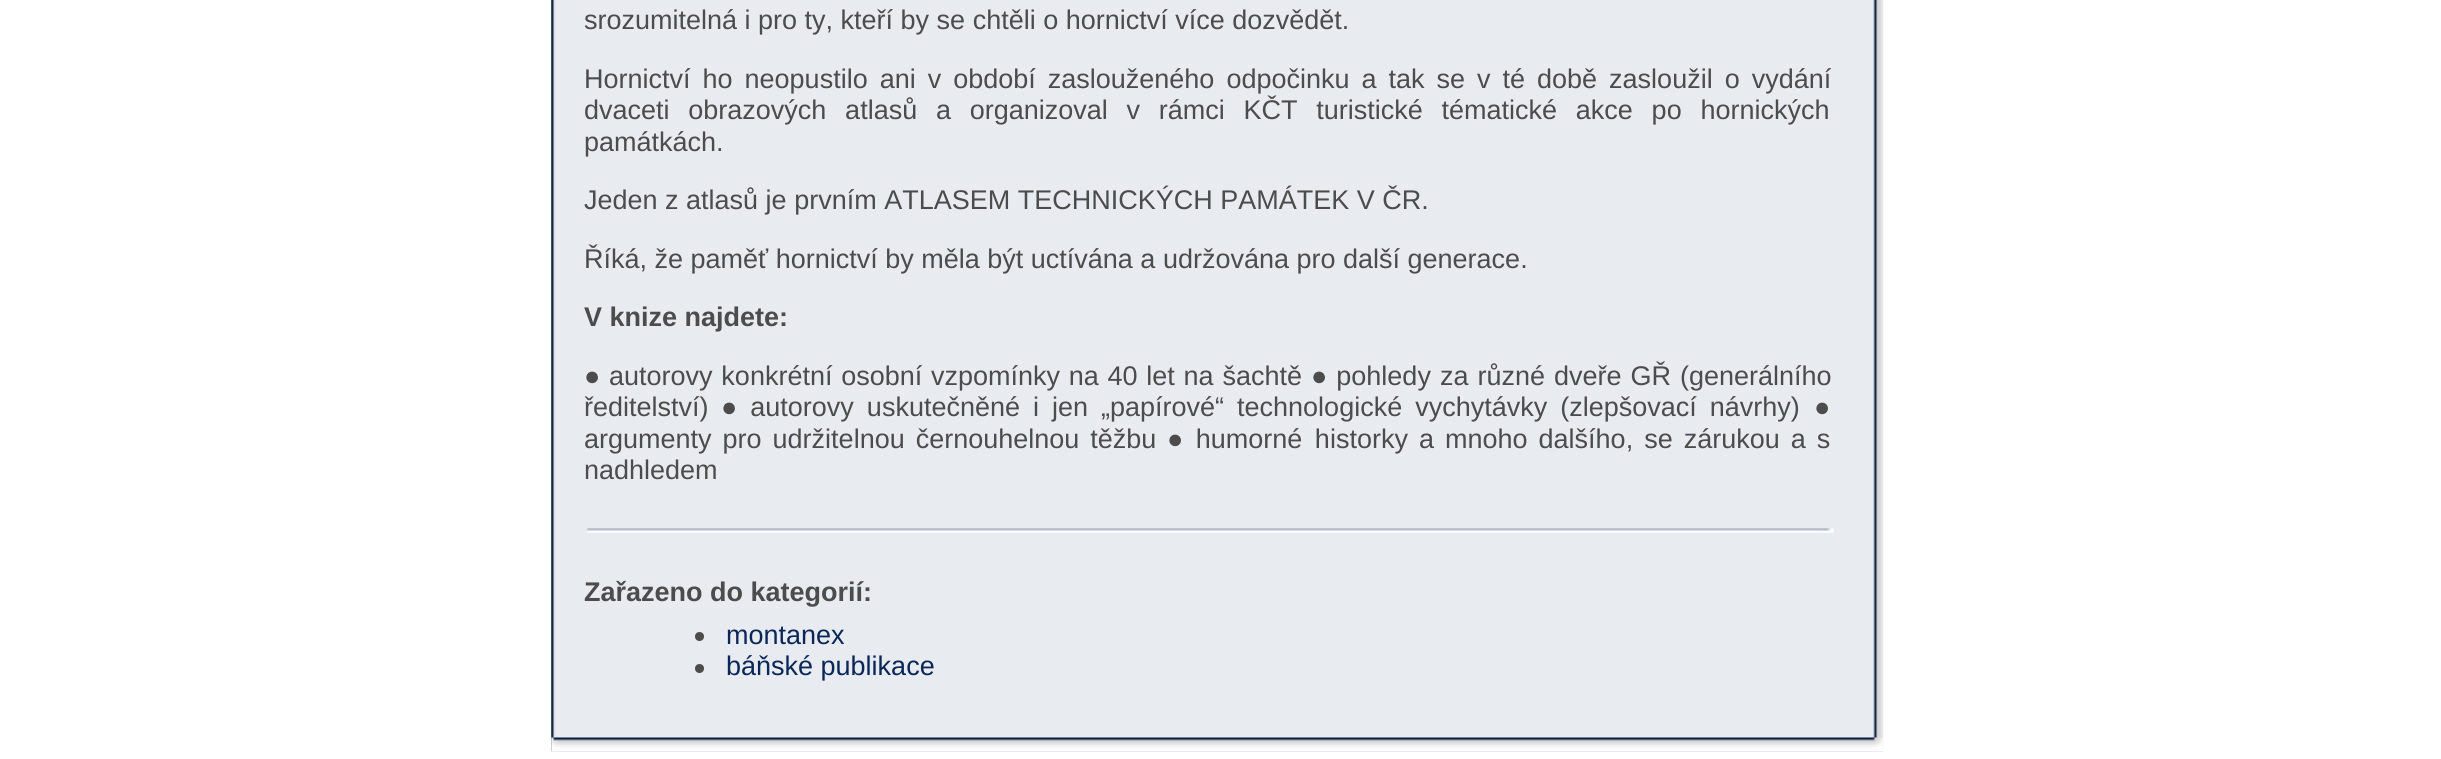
import math
import cairocffi as cairo

surface = cairo.ImageSurface(cairo.FORMAT_RGB24, 2441, 759)
cr = cairo.Context(surface)
options = cairo.FontOptions()
options.set_hint_metrics(cairo.HINT_METRICS_OFF)
options.set_hint_style(cairo.HINT_STYLE_NONE)
cr.set_font_options(options)
cr.set_miter_limit(4)


def use_color(code):
    cr.set_source_rgb(*(v / 255 for v in bytes.fromhex(code[-6:])))


def spaced_text(x, y, s, letter, word):
    cr.move_to(x, y)
    for ch in s:
        cr.show_text(ch)
        cr.rel_move_to(letter + word * (ch == ' '), 0)


def picture(path, x, y, w, h):
    cr.save()
    cr.set_source_surface(cairo.ImageSurface.create_from_png(path), x, y)
    cr.rectangle(x, y, w, h)
    cr.fill()
    cr.restore()


use_color("#ffffff")
cr.paint()
use_color("#e8ebf0")
cr.rectangle(551, 0, 1332, 752)
cr.fill()
picture("img1.png", 551, 0, 1333, 751)
cr.select_font_face("Liberation Sans")
cr.set_font_size(27)
use_color("#4c4c4c")
cr.move_to(584, 29)
cr.show_text("srozumitelná i pro ty, kteří by se chtěli o hornictví více dozvědět.")
spaced_text(584, 88, "Hornictví ho neopustilo ani v období zaslouženého odpočinku a tak se v té době zasloužil o vydání", 0, 4.5)
spaced_text(584, 119, "dvaceti obrazových atlasů a organizoval v rámci KČT turistické tématické akce po hornických", 0, 11.25)
cr.move_to(584, 151)
cr.show_text("památkách.")
cr.move_to(584, 209)
cr.show_text("Jeden z atlasů je prvním ATLASEM TECHNICKÝCH PAMÁTEK V ČR.")
cr.move_to(584, 268)
cr.show_text("Říká, že paměť hornictví by měla být uctívána a udržována pro další generace.")
cr.select_font_face("Liberation Sans", cairo.FONT_SLANT_NORMAL, cairo.FONT_WEIGHT_BOLD)
cr.move_to(584, 326)
cr.show_text("V knize najdete:")
cr.select_font_face("Liberation Sans")
spaced_text(584, 385, "● autorovy konkrétní osobní vzpomínky na 40 let na šachtě", 0, 1.25)
spaced_text(1311, 385, "● pohledy za různé dveře GŘ (generálního", 0, 1.5)
cr.move_to(584, 416)
cr.show_text("ředitelství)")
spaced_text(721, 416, "● autorovy uskutečněné i jen „papírové“ technologické vychytávky (zlepšovací návrhy)", 0, 5.5)
cr.move_to(1814, 416)
cr.show_text("●")
spaced_text(584, 448, "argumenty pro udržitelnou černouhelnou těžbu", 0, 3.5)
spaced_text(1167, 448, "● humorné historky", 0, 5)
spaced_text(1419, 448, "a mnoho dalšího, se zárukou a s", 0, 3.5)
cr.move_to(584, 479)
cr.show_text("nadhledem")
picture("img2.png", 586, 528, 1248, 5)
cr.select_font_face("Liberation Sans", cairo.FONT_SLANT_NORMAL, cairo.FONT_WEIGHT_BOLD)
cr.move_to(584, 601)
cr.show_text("Zařazeno do kategorií:")
cr.new_path()
cr.arc(699.5, 636.5, 4.5, 0, 2 * math.pi)
cr.fill()
cr.select_font_face("Liberation Sans")
use_color("#0b2758")
cr.move_to(726, 644)
cr.show_text("montanex")
use_color("#4c4c4c")
cr.new_path()
cr.arc(699.5, 668.5, 4.5, 0, 2 * math.pi)
cr.fill()
use_color("#0b2758")
cr.move_to(726, 675)
cr.show_text("báňské publikace")
picture("img3.png", 551, 737, 1332, 14)
surface.write_to_png("result.png")
